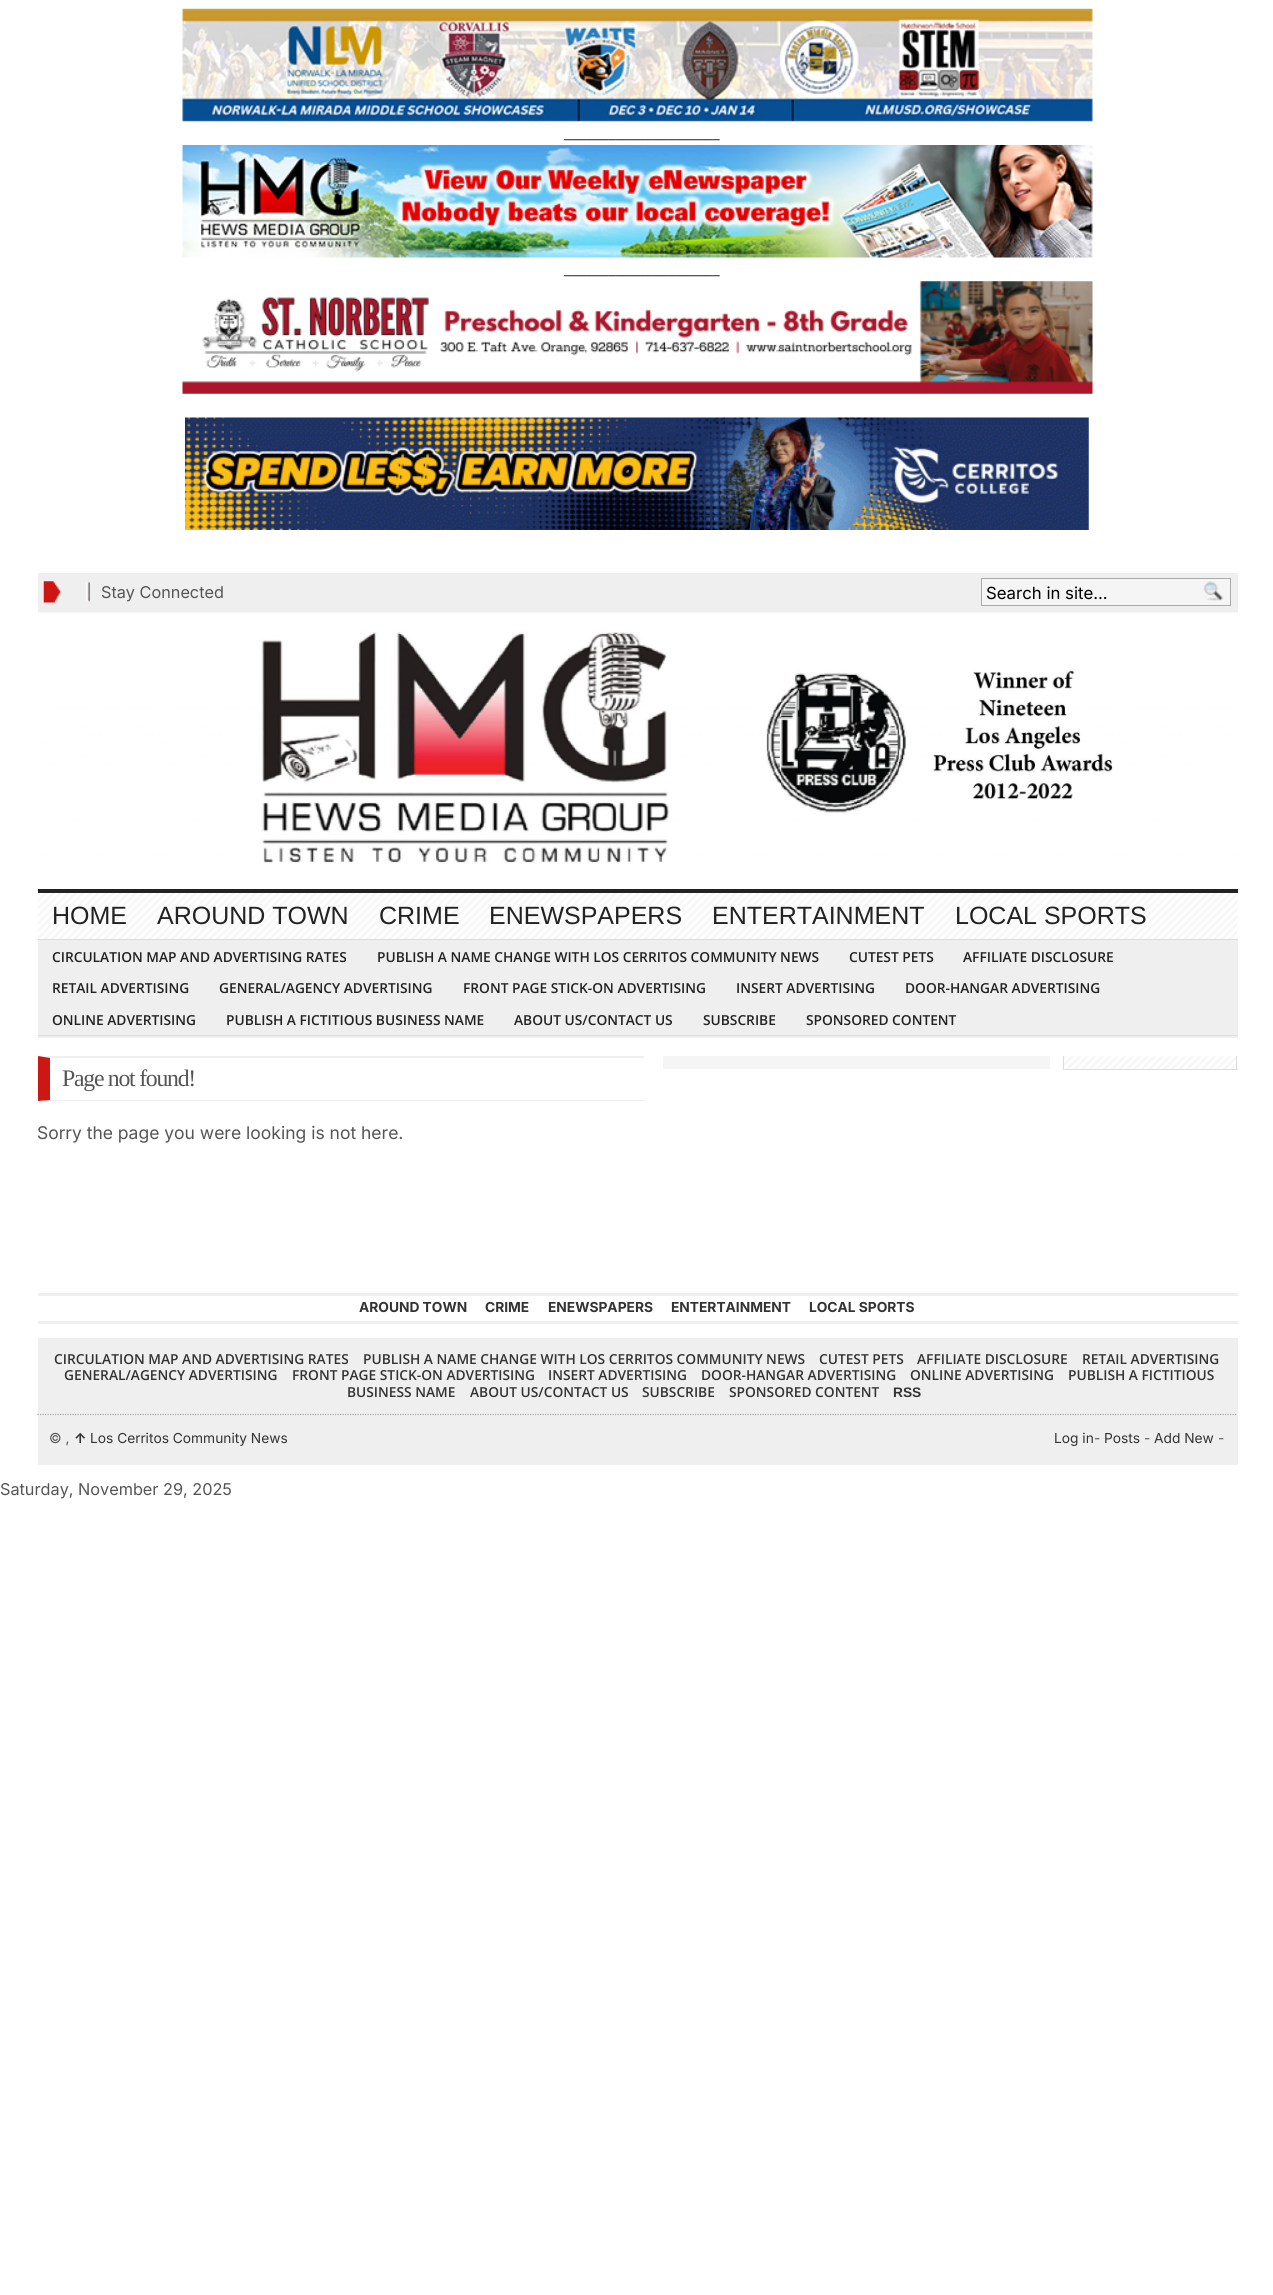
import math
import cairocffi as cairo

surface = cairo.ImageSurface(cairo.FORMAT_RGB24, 1273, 2295)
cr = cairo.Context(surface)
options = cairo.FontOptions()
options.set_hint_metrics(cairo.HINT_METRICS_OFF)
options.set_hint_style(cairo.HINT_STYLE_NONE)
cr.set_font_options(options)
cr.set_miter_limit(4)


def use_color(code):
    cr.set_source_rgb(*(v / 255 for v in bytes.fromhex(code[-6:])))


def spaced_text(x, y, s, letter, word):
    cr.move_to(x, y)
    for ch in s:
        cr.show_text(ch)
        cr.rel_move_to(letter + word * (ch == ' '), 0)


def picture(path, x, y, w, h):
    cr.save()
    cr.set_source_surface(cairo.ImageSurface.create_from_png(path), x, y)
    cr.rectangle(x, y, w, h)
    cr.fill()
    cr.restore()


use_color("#ffffff")
cr.paint()
picture("img1.png", 182, 8, 911, 114)
cr.select_font_face("Inter")
cr.set_font_size(16.25)
use_color("#555555")
cr.move_to(564, 139)
cr.show_text("_____________________")
picture("img2.png", 182, 145, 911, 113)
cr.move_to(564, 275)
cr.show_text("_____________________")
picture("img3.png", 182, 281, 911, 113)
picture("img4.png", 185, 417, 904, 113)
use_color("#efefef")
cr.rectangle(38, 573, 1200, 40)
cr.fill()
picture("img5.png", 43, 581, 19, 22)
picture("img6.png", 86, 582, 4, 20)
use_color("#555555")
cr.move_to(101, 598)
cr.show_text("Stay Connected")
use_color("#f5f5f5")
cr.rectangle(981.5, 578.5, 249, 27)
cr.fill_preserve()
use_color("#aaaaaa")
cr.set_line_width(1)
cr.stroke()
cr.set_font_size(16.75)
use_color("#000000")
cr.move_to(986, 599)
cr.show_text("Search in site...")
picture("img7.png", 1203, 581, 20, 20)
picture("img9.png", 37, 892, 1201, 48)
use_color("#222222")
cr.rectangle(38, 889, 1200, 4)
cr.fill()
picture("img8.png", 38, 612, 1200, 251)
use_color("#dddddd")
cr.rectangle(38, 939, 1200, 1)
cr.fill()
cr.select_font_face("Liberation Sans")
cr.set_font_size(25)
use_color("#222222")
cr.move_to(52, 924)
cr.show_text("HOME")
cr.move_to(157, 924)
cr.show_text("AROUND TOWN")
cr.move_to(379, 924)
cr.show_text("CRIME")
cr.move_to(489, 924)
cr.show_text("ENEWSPAPERS")
cr.move_to(712, 924)
cr.show_text("ENTERTAINMENT")
cr.move_to(955, 924)
cr.show_text("LOCAL SPORTS")
use_color("#efefef")
cr.rectangle(38, 940, 1200, 98)
cr.fill()
use_color("#dddddd")
cr.rectangle(38, 1035, 1200, 1)
cr.fill()
cr.select_font_face("Open Sans SemiBold")
cr.set_font_size(13.75)
use_color("#222222")
cr.move_to(52, 962)
cr.show_text("CIRCULATION MAP AND ADVERTISING RATES")
cr.move_to(377, 962)
cr.show_text("PUBLISH A NAME CHANGE WITH LOS CERRITOS COMMUNITY NEWS")
cr.move_to(849, 962)
cr.show_text("CUTEST PETS")
cr.move_to(963, 962)
cr.show_text("AFFILIATE DISCLOSURE")
cr.move_to(52, 993)
cr.show_text("RETAIL ADVERTISING")
cr.move_to(219, 993)
cr.show_text("GENERAL/AGENCY ADVERTISING")
cr.move_to(463, 993)
cr.show_text("FRONT PAGE STICK-ON ADVERTISING")
cr.move_to(736, 993)
cr.show_text("INSERT ADVERTISING")
cr.move_to(905, 993)
cr.show_text("DOOR-HANGAR ADVERTISING")
cr.move_to(52, 1025)
cr.show_text("ONLINE ADVERTISING")
cr.move_to(226, 1025)
cr.show_text("PUBLISH A FICTITIOUS BUSINESS NAME")
cr.move_to(514, 1025)
cr.show_text("ABOUT US/CONTACT US")
cr.move_to(703, 1025)
cr.show_text("SUBSCRIBE")
cr.move_to(806, 1025)
cr.show_text("SPONSORED CONTENT")
use_color("#f5f5f5")
cr.rectangle(663, 1056, 387, 13)
cr.fill()
picture("img10.png", 1062, 1056, 176, 14)
use_color("#dddddd")
cr.rectangle(1236, 1056, 1, 14)
cr.fill()
cr.rectangle(1063, 1069, 175, 1)
cr.fill()
cr.rectangle(1063, 1056, 1, 14)
cr.fill()
use_color("#efefef")
cr.new_path()
cr.move_to(38, 1056)
cr.line_to(644, 1056)
cr.line_to(644, 1058)
cr.line_to(50, 1058)
cr.close_path()
cr.fill()
cr.new_path()
cr.move_to(644, 1101)
cr.line_to(38, 1101)
cr.line_to(50, 1100)
cr.line_to(644, 1100)
cr.close_path()
cr.fill()
use_color("#cd1713")
cr.new_path()
cr.move_to(38, 1101)
cr.line_to(38, 1056)
cr.line_to(50, 1058)
cr.line_to(50, 1100)
cr.close_path()
cr.fill()
cr.select_font_face("Liberation Serif")
cr.set_font_size(23.75)
use_color("#555555")
spaced_text(62, 1086, "Page not found!", -1.25, 0)
cr.select_font_face("Inter")
cr.set_font_size(17.5)
cr.move_to(37, 1139)
cr.show_text("Sorry the page you were looking is not here.")
use_color("#efefef")
cr.rectangle(38, 1293, 1200, 3)
cr.fill()
cr.rectangle(38, 1321, 1200, 3)
cr.fill()
cr.select_font_face("Inter", cairo.FONT_SLANT_NORMAL, cairo.FONT_WEIGHT_BOLD)
cr.set_font_size(13.75)
use_color("#333333")
cr.move_to(359, 1312)
cr.show_text("AROUND TOWN")
cr.move_to(485, 1312)
cr.show_text("CRIME")
cr.move_to(548, 1312)
cr.show_text("ENEWSPAPERS")
cr.move_to(671, 1312)
cr.show_text("ENTERTAINMENT")
cr.move_to(809, 1312)
cr.show_text("LOCAL SPORTS")
use_color("#efefef")
cr.rectangle(38, 1338, 1200, 127)
cr.fill()
cr.select_font_face("Open Sans SemiBold")
use_color("#333333")
cr.move_to(54, 1364)
cr.show_text("CIRCULATION MAP AND ADVERTISING RATES")
cr.move_to(363, 1364)
cr.show_text("PUBLISH A NAME CHANGE WITH LOS CERRITOS COMMUNITY NEWS")
cr.move_to(819, 1364)
cr.show_text("CUTEST PETS")
cr.move_to(917, 1364)
cr.show_text("AFFILIATE DISCLOSURE")
cr.move_to(1082, 1364)
cr.show_text("RETAIL ADVERTISING")
cr.move_to(64, 1380)
cr.show_text("GENERAL/AGENCY ADVERTISING")
cr.move_to(292, 1380)
cr.show_text("FRONT PAGE STICK-ON ADVERTISING")
cr.move_to(548, 1380)
cr.show_text("INSERT ADVERTISING")
cr.move_to(701, 1380)
cr.show_text("DOOR-HANGAR ADVERTISING")
cr.move_to(910, 1380)
cr.show_text("ONLINE ADVERTISING")
cr.move_to(1068, 1380)
cr.show_text("PUBLISH A FICTITIOUS")
cr.move_to(347, 1397)
cr.show_text("BUSINESS NAME")
cr.move_to(470, 1397)
cr.show_text("ABOUT US/CONTACT US")
cr.move_to(642, 1397)
cr.show_text("SUBSCRIBE")
cr.move_to(729, 1397)
cr.show_text("SPONSORED CONTENT")
cr.select_font_face("Liberation Sans", cairo.FONT_SLANT_NORMAL, cairo.FONT_WEIGHT_BOLD)
cr.move_to(893, 1397)
cr.show_text("RSS")
cr.new_path()
cr.move_to(37.5, 1414.5)
cr.line_to(1237.5, 1414.5)
use_color("#aaaaaa")
cr.set_line_width(1.2)
cr.set_dash([1.25, 1.25])
cr.stroke()
cr.select_font_face("Inter")
use_color("#555555")
cr.move_to(49, 1443)
cr.show_text("© ,")
cr.select_font_face("Inter", cairo.FONT_SLANT_NORMAL, cairo.FONT_WEIGHT_BOLD)
use_color("#333333")
cr.move_to(74, 1443)
cr.show_text("↑")
cr.select_font_face("Inter")
cr.move_to(90, 1443)
cr.show_text("Los Cerritos Community News")
cr.move_to(1054, 1443)
cr.show_text("Log in")
use_color("#555555")
cr.move_to(1094, 1443)
cr.show_text("-")
use_color("#333333")
cr.move_to(1104, 1443)
cr.show_text("Posts")
use_color("#555555")
cr.move_to(1144, 1443)
cr.show_text("-")
use_color("#333333")
cr.move_to(1154, 1443)
cr.show_text("Add New")
use_color("#555555")
cr.move_to(1218, 1443)
cr.show_text("-")
cr.set_font_size(16.25)
cr.move_to(0, 1495)
cr.show_text("Saturday, November 29, 2025")
surface.write_to_png("result.png")
